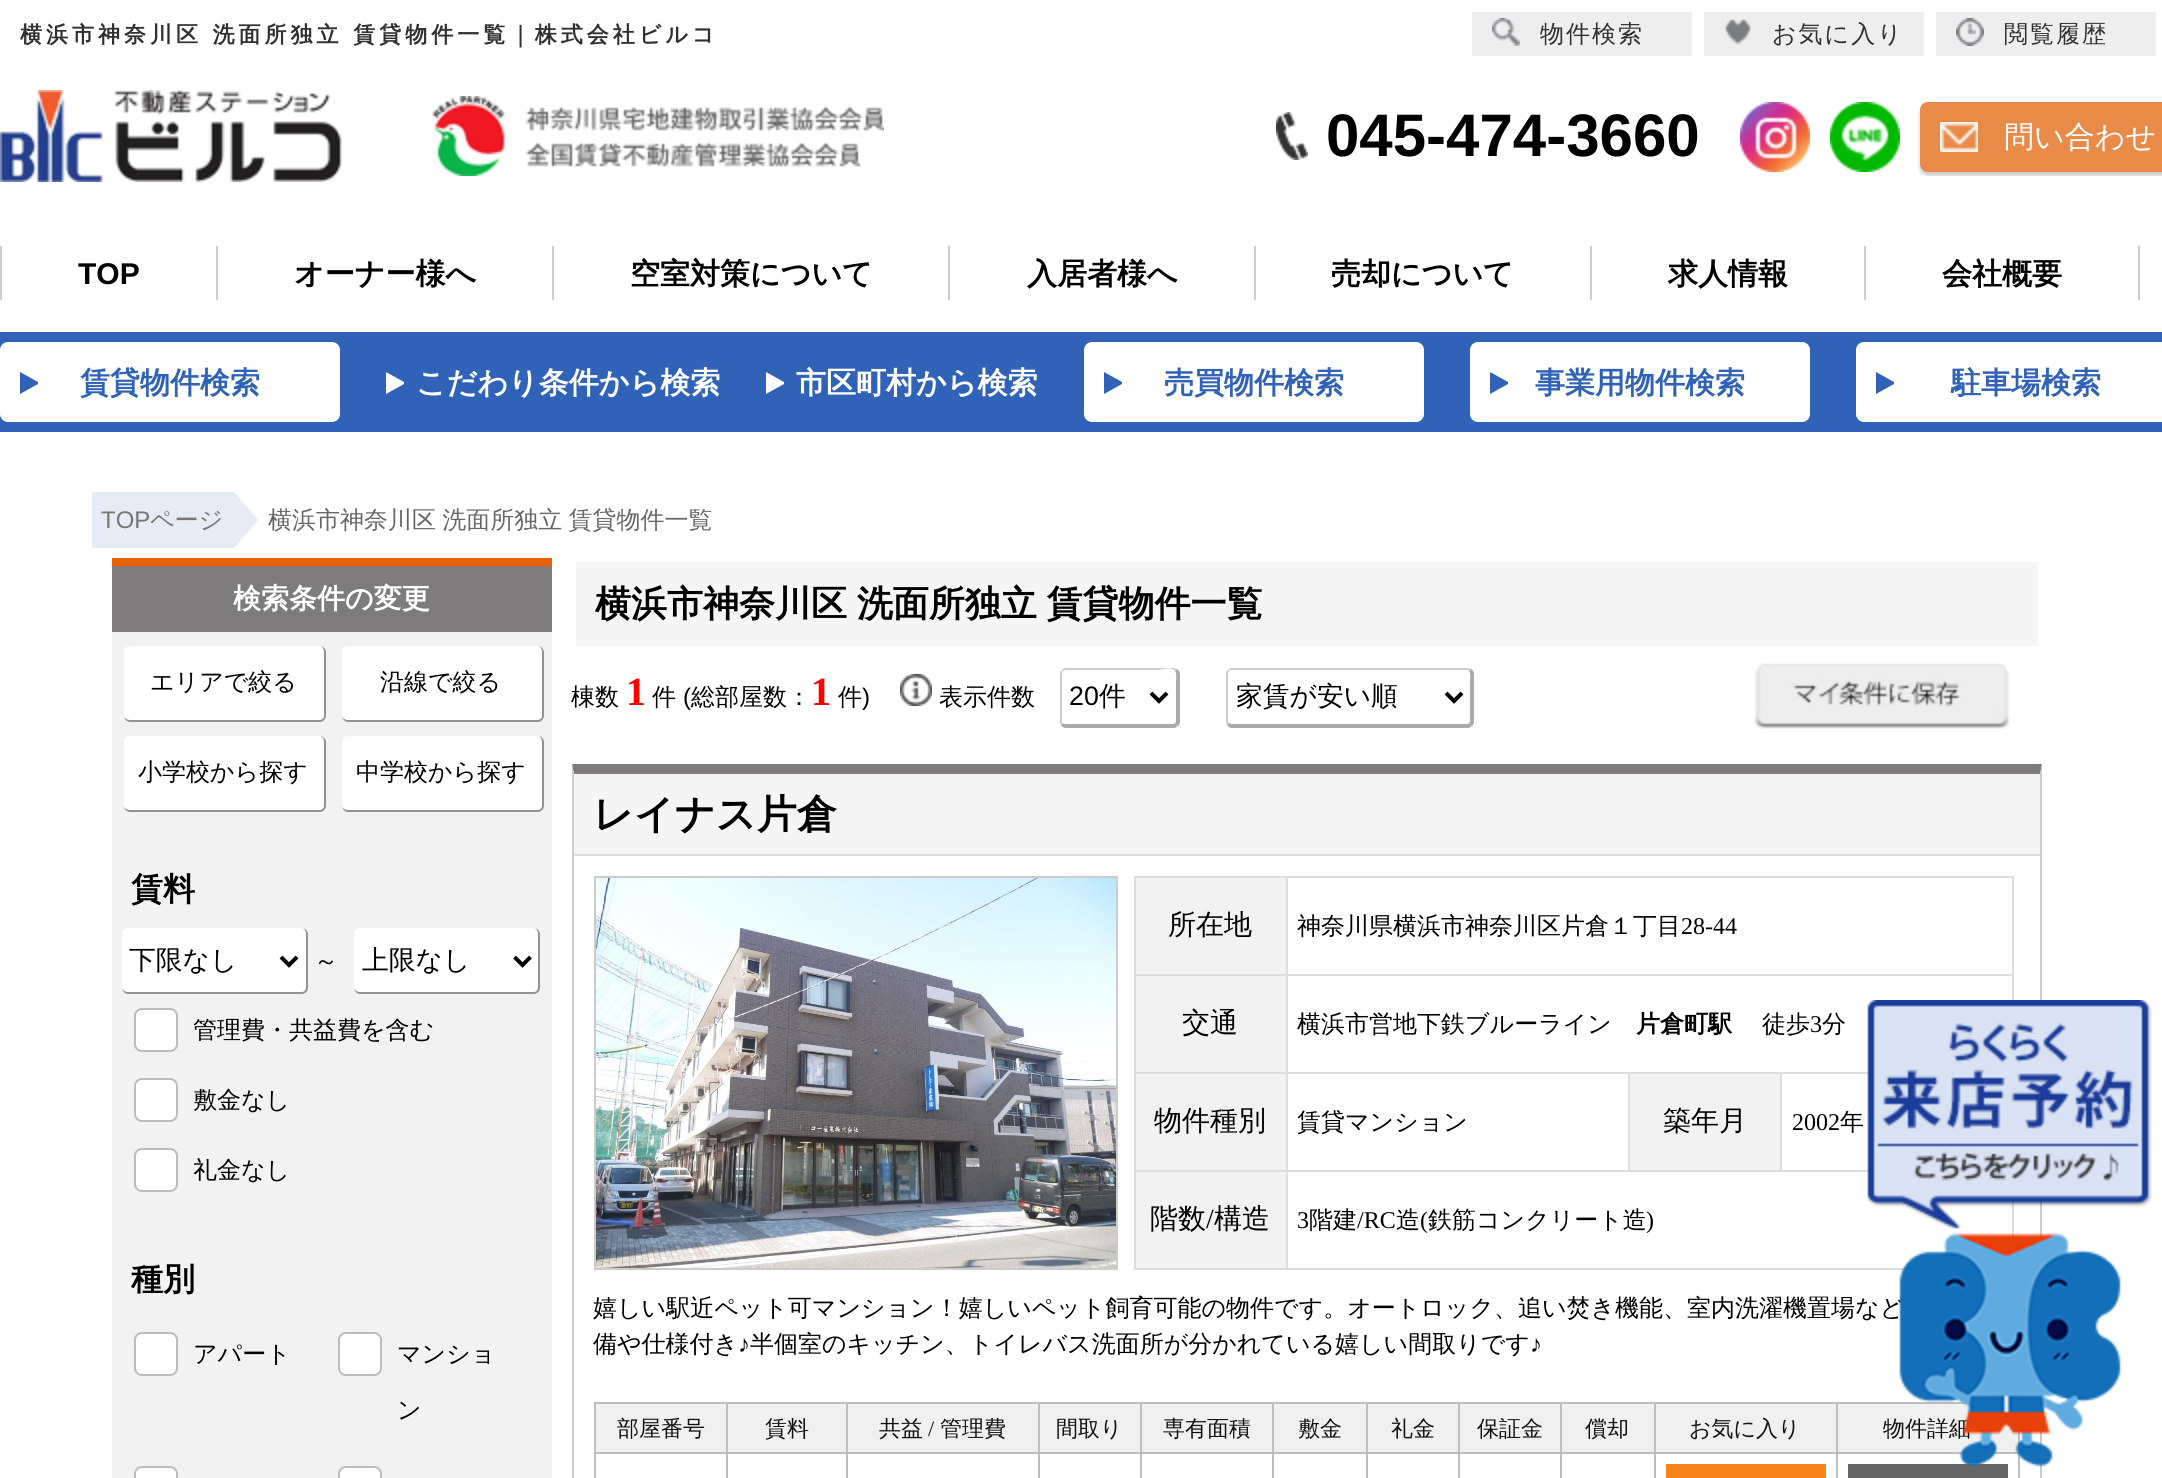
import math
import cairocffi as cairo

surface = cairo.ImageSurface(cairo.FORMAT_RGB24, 2162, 1478)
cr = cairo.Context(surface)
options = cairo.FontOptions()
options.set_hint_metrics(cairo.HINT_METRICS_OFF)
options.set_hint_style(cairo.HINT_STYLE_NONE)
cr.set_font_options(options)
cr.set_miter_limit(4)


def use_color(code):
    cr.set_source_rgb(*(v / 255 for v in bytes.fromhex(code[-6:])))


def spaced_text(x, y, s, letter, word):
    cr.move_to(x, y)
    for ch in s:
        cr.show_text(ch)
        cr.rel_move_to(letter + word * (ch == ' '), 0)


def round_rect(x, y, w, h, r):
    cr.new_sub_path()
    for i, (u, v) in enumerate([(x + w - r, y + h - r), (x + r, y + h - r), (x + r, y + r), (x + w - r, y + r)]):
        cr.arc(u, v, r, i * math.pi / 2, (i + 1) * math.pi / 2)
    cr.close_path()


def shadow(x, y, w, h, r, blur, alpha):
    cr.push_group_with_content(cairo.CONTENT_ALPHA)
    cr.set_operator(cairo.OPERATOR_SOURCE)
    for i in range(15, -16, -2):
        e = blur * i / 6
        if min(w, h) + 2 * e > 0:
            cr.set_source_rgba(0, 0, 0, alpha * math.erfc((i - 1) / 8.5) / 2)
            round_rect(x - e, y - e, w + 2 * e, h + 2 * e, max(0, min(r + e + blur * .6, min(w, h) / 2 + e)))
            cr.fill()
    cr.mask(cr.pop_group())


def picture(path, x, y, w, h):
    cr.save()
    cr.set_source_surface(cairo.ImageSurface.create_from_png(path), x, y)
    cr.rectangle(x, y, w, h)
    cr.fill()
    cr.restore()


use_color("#ffffff")
cr.paint()
cr.select_font_face("WenQuanYi Zen Hei", cairo.FONT_SLANT_NORMAL, cairo.FONT_WEIGHT_BOLD)
cr.set_font_size(22)
use_color("#303030")
spaced_text(20, 42, "横浜市神奈川区 洗面所独立 賃貸物件一覧｜株式会社ビルコ", 4, 0)
use_color("#eeeeee")
cr.rectangle(1472, 12, 220, 44)
cr.fill()
picture("img1.png", 1492, 18, 28, 28)
cr.select_font_face("WenQuanYi Zen Hei Medium")
cr.set_font_size(24)
use_color("#303030")
spaced_text(1540, 42, "物件検索", 2, 0)
use_color("#eeeeee")
cr.rectangle(1704, 12, 220, 44)
cr.fill()
picture("img2.png", 1725, 19, 26, 26)
use_color("#303030")
spaced_text(1772, 42, "お気に入り", 2, 0)
use_color("#eeeeee")
cr.rectangle(1936, 12, 220, 44)
cr.fill()
picture("img3.png", 1956, 18, 28, 28)
use_color("#303030")
spaced_text(2004, 42, "閲覧履歴", 2, 0)
picture("img4.png", 0, 90, 342, 92)
picture("img5.png", 432, 96, 452, 80)
picture("img6.png", 1276, 112, 32, 48)
cr.select_font_face("Liberation Sans", cairo.FONT_SLANT_NORMAL, cairo.FONT_WEIGHT_BOLD)
cr.set_font_size(60)
use_color("#000000")
cr.move_to(1326, 156)
cr.show_text("045-474-3660")
picture("img7.png", 1740, 102, 70, 70)
picture("img8.png", 1830, 102, 70, 70)
cr.save()
cr.rectangle(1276, 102, 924, 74)
cr.clip()
use_color("#cccccc")
shadow(1920, 106, 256, 70, 8, 2, 1)
cr.restore()
use_color("#e88b49")
round_rect(1920, 102, 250, 70, 8)
cr.fill()
picture("img9.png", 1940, 122, 38, 30)
cr.select_font_face("WenQuanYi Zen Hei Medium")
cr.set_font_size(30)
use_color("#ffffff")
cr.move_to(2004, 147)
cr.show_text("問い合わせ")
use_color("#cccccc")
cr.rectangle(0, 246, 2, 54)
cr.fill()
cr.select_font_face("Liberation Sans", cairo.FONT_SLANT_NORMAL, cairo.FONT_WEIGHT_BOLD)
use_color("#000000")
cr.move_to(78, 284)
cr.show_text("TOP")
use_color("#cccccc")
cr.rectangle(216, 246, 2, 54)
cr.fill()
cr.select_font_face("WenQuanYi Zen Hei", cairo.FONT_SLANT_NORMAL, cairo.FONT_WEIGHT_BOLD)
use_color("#000000")
cr.move_to(294, 284)
cr.show_text("オーナー様へ")
use_color("#cccccc")
cr.rectangle(552, 246, 2, 54)
cr.fill()
use_color("#000000")
cr.move_to(630, 284)
cr.show_text("空室対策について")
use_color("#cccccc")
cr.rectangle(948, 246, 2, 54)
cr.fill()
use_color("#000000")
cr.move_to(1027, 284)
cr.show_text("入居者様へ")
use_color("#cccccc")
cr.rectangle(1254, 246, 2, 54)
cr.fill()
use_color("#000000")
cr.move_to(1331, 284)
cr.show_text("売却について")
use_color("#cccccc")
cr.rectangle(1590, 246, 2, 54)
cr.fill()
use_color("#000000")
cr.move_to(1668, 284)
cr.show_text("求人情報")
use_color("#cccccc")
cr.rectangle(2138, 246, 2, 54)
cr.fill()
cr.rectangle(1864, 246, 2, 54)
cr.fill()
use_color("#000000")
cr.move_to(1942, 284)
cr.show_text("会社概要")
use_color("#3063b8")
cr.rectangle(0, 332, 2162, 100)
cr.fill()
use_color("#ffffff")
round_rect(0, 342, 340, 80, 8)
cr.fill()
use_color("#3063b8")
cr.new_path()
cr.move_to(20, 394)
cr.line_to(20, 372)
cr.line_to(38, 382)
cr.line_to(38, 384)
cr.close_path()
cr.fill()
cr.move_to(80, 393)
cr.show_text("賃貸物件検索")
use_color("#ffffff")
cr.new_path()
cr.move_to(386, 394)
cr.line_to(386, 372)
cr.line_to(404, 382)
cr.line_to(404, 384)
cr.close_path()
cr.fill()
cr.move_to(416, 393)
cr.show_text("こだわり条件から検索")
cr.new_path()
cr.move_to(766, 394)
cr.line_to(766, 372)
cr.line_to(784, 382)
cr.line_to(784, 384)
cr.close_path()
cr.fill()
cr.move_to(796, 393)
cr.show_text("市区町村から検索")
round_rect(1084, 342, 340, 80, 8)
cr.fill()
use_color("#3063b8")
cr.new_path()
cr.move_to(1104, 394)
cr.line_to(1104, 372)
cr.line_to(1122, 382)
cr.line_to(1122, 384)
cr.close_path()
cr.fill()
cr.move_to(1164, 393)
cr.show_text("売買物件検索")
use_color("#ffffff")
round_rect(1470, 342, 340, 80, 8)
cr.fill()
use_color("#3063b8")
cr.new_path()
cr.move_to(1490, 394)
cr.line_to(1490, 372)
cr.line_to(1508, 382)
cr.line_to(1508, 384)
cr.close_path()
cr.fill()
cr.move_to(1535, 393)
cr.show_text("事業用物件検索")
use_color("#ffffff")
round_rect(1856, 342, 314, 80, 8)
cr.fill()
use_color("#3063b8")
cr.new_path()
cr.move_to(1876, 394)
cr.line_to(1876, 372)
cr.line_to(1894, 382)
cr.line_to(1894, 384)
cr.close_path()
cr.fill()
cr.move_to(1951, 393)
cr.show_text("駐車場検索")
use_color("#e6ecf5")
cr.rectangle(92, 492, 142, 56)
cr.fill()
cr.select_font_face("Liberation Sans")
cr.set_font_size(24)
use_color("#747772")
cr.move_to(101, 528)
cr.show_text("TOP")
cr.select_font_face("WenQuanYi Zen Hei Medium")
cr.move_to(150, 528)
cr.show_text("ページ")
use_color("#e6ecf5")
cr.new_path()
cr.move_to(234, 548)
cr.line_to(234, 492)
cr.line_to(258, 520)
cr.close_path()
cr.fill()
use_color("#666666")
spaced_text(268, 528, "横浜市神奈川区 洗面所独立 賃貸物件一覧", 0, -1)
use_color("#7d7b7b")
cr.rectangle(112, 566, 440, 66)
cr.fill()
use_color("#eb6100")
cr.rectangle(112, 558, 440, 8)
cr.fill()
cr.select_font_face("WenQuanYi Zen Hei", cairo.FONT_SLANT_NORMAL, cairo.FONT_WEIGHT_BOLD)
cr.set_font_size(28)
use_color("#ffffff")
cr.move_to(233, 608)
cr.show_text("検索条件の変更")
use_color("#f2f2f2")
cr.rectangle(112, 632, 440, 846)
cr.fill()
use_color("#ffffff")
round_rect(124, 646, 202, 76, 6)
cr.fill()
use_color("#939191")
cr.set_fill_rule(cairo.FILL_RULE_EVEN_ODD)
cr.new_path()
cr.move_to(130, 646)
cr.line_to(320, 646)
cr.curve_to(323, 646, 326, 649, 326, 652)
cr.line_to(326, 716)
cr.curve_to(326, 719, 323, 722, 320, 722)
cr.line_to(130, 722)
cr.curve_to(127, 722, 124, 719, 124, 716)
cr.line_to(124, 652)
cr.curve_to(124, 649, 127, 646, 130, 646)
cr.close_path()
cr.move_to(130, 646)
cr.line_to(320, 646)
cr.curve_to(322, 646, 324, 649, 324, 652)
cr.line_to(324, 716)
cr.curve_to(324, 718, 322, 720, 320, 720)
cr.line_to(130, 720)
cr.curve_to(127, 720, 124, 718, 124, 716)
cr.line_to(124, 652)
cr.curve_to(124, 649, 127, 646, 130, 646)
cr.close_path()
cr.fill()
cr.select_font_face("WenQuanYi Zen Hei Medium")
cr.set_font_size(24)
use_color("#000000")
cr.move_to(150, 690)
cr.show_text("エリアで絞る")
use_color("#ffffff")
round_rect(342, 646, 202, 76, 6)
cr.fill()
use_color("#939191")
cr.new_path()
cr.move_to(348, 646)
cr.line_to(538, 646)
cr.curve_to(541, 646, 544, 649, 544, 652)
cr.line_to(544, 716)
cr.curve_to(544, 719, 541, 722, 538, 722)
cr.line_to(348, 722)
cr.curve_to(345, 722, 342, 719, 342, 716)
cr.line_to(342, 652)
cr.curve_to(342, 649, 345, 646, 348, 646)
cr.close_path()
cr.move_to(348, 646)
cr.line_to(538, 646)
cr.curve_to(540, 646, 542, 649, 542, 652)
cr.line_to(542, 716)
cr.curve_to(542, 718, 540, 720, 538, 720)
cr.line_to(348, 720)
cr.curve_to(345, 720, 342, 718, 342, 716)
cr.line_to(342, 652)
cr.curve_to(342, 649, 345, 646, 348, 646)
cr.close_path()
cr.fill()
use_color("#000000")
cr.move_to(380, 690)
cr.show_text("沿線で絞る")
use_color("#ffffff")
round_rect(124, 736, 202, 76, 6)
cr.fill()
use_color("#939191")
cr.new_path()
cr.move_to(130, 736)
cr.line_to(320, 736)
cr.curve_to(323, 736, 326, 739, 326, 742)
cr.line_to(326, 806)
cr.curve_to(326, 809, 323, 812, 320, 812)
cr.line_to(130, 812)
cr.curve_to(127, 812, 124, 809, 124, 806)
cr.line_to(124, 742)
cr.curve_to(124, 739, 127, 736, 130, 736)
cr.close_path()
cr.move_to(130, 736)
cr.line_to(320, 736)
cr.curve_to(322, 736, 324, 739, 324, 742)
cr.line_to(324, 806)
cr.curve_to(324, 808, 322, 810, 320, 810)
cr.line_to(130, 810)
cr.curve_to(127, 810, 124, 808, 124, 806)
cr.line_to(124, 742)
cr.curve_to(124, 739, 127, 736, 130, 736)
cr.close_path()
cr.fill()
use_color("#000000")
cr.move_to(138, 780)
cr.show_text("小学校から探す")
use_color("#ffffff")
round_rect(342, 736, 202, 76, 6)
cr.fill()
use_color("#939191")
cr.new_path()
cr.move_to(348, 736)
cr.line_to(538, 736)
cr.curve_to(541, 736, 544, 739, 544, 742)
cr.line_to(544, 806)
cr.curve_to(544, 809, 541, 812, 538, 812)
cr.line_to(348, 812)
cr.curve_to(345, 812, 342, 809, 342, 806)
cr.line_to(342, 742)
cr.curve_to(342, 739, 345, 736, 348, 736)
cr.close_path()
cr.move_to(348, 736)
cr.line_to(538, 736)
cr.curve_to(540, 736, 542, 739, 542, 742)
cr.line_to(542, 806)
cr.curve_to(542, 808, 540, 810, 538, 810)
cr.line_to(348, 810)
cr.curve_to(345, 810, 342, 808, 342, 806)
cr.line_to(342, 742)
cr.curve_to(342, 739, 345, 736, 348, 736)
cr.close_path()
cr.fill()
use_color("#000000")
cr.move_to(356, 780)
cr.show_text("中学校から探す")
cr.select_font_face("WenQuanYi Zen Hei", cairo.FONT_SLANT_NORMAL, cairo.FONT_WEIGHT_BOLD)
cr.set_font_size(32)
cr.move_to(131, 900)
cr.show_text("賃料")
use_color("#ffffff")
round_rect(122, 928, 186, 66, 6)
cr.fill()
use_color("#939191")
cr.new_path()
cr.move_to(128, 928)
cr.line_to(302, 928)
cr.curve_to(305, 928, 308, 931, 308, 934)
cr.line_to(308, 988)
cr.curve_to(308, 991, 305, 994, 302, 994)
cr.line_to(128, 994)
cr.curve_to(125, 994, 122, 991, 122, 988)
cr.line_to(122, 934)
cr.curve_to(122, 931, 125, 928, 128, 928)
cr.close_path()
cr.move_to(128, 928)
cr.line_to(302, 928)
cr.curve_to(304, 928, 306, 931, 306, 934)
cr.line_to(306, 988)
cr.curve_to(306, 990, 304, 992, 302, 992)
cr.line_to(128, 992)
cr.curve_to(125, 992, 122, 990, 122, 988)
cr.line_to(122, 934)
cr.curve_to(122, 931, 125, 928, 128, 928)
cr.close_path()
cr.fill()
cr.new_path()
cr.move_to(281, 957)
cr.line_to(289, 965)
cr.line_to(297, 957)
use_color("#000000")
cr.set_line_width(4)
cr.stroke()
cr.select_font_face("WenQuanYi Zen Hei Medium")
cr.set_font_size(26.75)
cr.move_to(129, 969)
cr.show_text("下限なし")
cr.set_font_size(24)
cr.move_to(314, 969)
cr.show_text("～")
use_color("#ffffff")
round_rect(354, 928, 186, 66, 6)
cr.fill()
use_color("#939191")
cr.new_path()
cr.move_to(360, 928)
cr.line_to(534, 928)
cr.curve_to(537, 928, 540, 931, 540, 934)
cr.line_to(540, 988)
cr.curve_to(540, 991, 537, 994, 534, 994)
cr.line_to(360, 994)
cr.curve_to(357, 994, 354, 991, 354, 988)
cr.line_to(354, 934)
cr.curve_to(354, 931, 357, 928, 360, 928)
cr.close_path()
cr.move_to(360, 928)
cr.line_to(534, 928)
cr.curve_to(536, 928, 538, 931, 538, 934)
cr.line_to(538, 988)
cr.curve_to(538, 990, 536, 992, 534, 992)
cr.line_to(360, 992)
cr.curve_to(357, 992, 354, 990, 354, 988)
cr.line_to(354, 934)
cr.curve_to(354, 931, 357, 928, 360, 928)
cr.close_path()
cr.fill()
cr.new_path()
cr.move_to(514.5, 957)
cr.line_to(522.5, 965)
cr.line_to(530.5, 957)
use_color("#000000")
cr.stroke()
cr.set_font_size(26.75)
cr.move_to(362, 969)
cr.show_text("上限なし")
use_color("#ffffff")
round_rect(135, 1009, 42, 42, 7)
cr.fill_preserve()
use_color("#bbbbbb")
cr.set_line_width(2)
cr.stroke()
cr.set_font_size(24)
use_color("#000000")
cr.move_to(193, 1038)
cr.show_text("管理費・共益費を含む")
use_color("#ffffff")
round_rect(135, 1079, 42, 42, 7)
cr.fill_preserve()
use_color("#bbbbbb")
cr.stroke()
use_color("#000000")
cr.move_to(193, 1108)
cr.show_text("敷金なし")
use_color("#ffffff")
round_rect(135, 1149, 42, 42, 7)
cr.fill_preserve()
use_color("#bbbbbb")
cr.stroke()
use_color("#000000")
cr.move_to(193, 1178)
cr.show_text("礼金なし")
cr.select_font_face("WenQuanYi Zen Hei", cairo.FONT_SLANT_NORMAL, cairo.FONT_WEIGHT_BOLD)
cr.set_font_size(32)
cr.move_to(131, 1290)
cr.show_text("種別")
use_color("#ffffff")
round_rect(135, 1333, 42, 42, 7)
cr.fill_preserve()
use_color("#bbbbbb")
cr.stroke()
cr.select_font_face("WenQuanYi Zen Hei Medium")
cr.set_font_size(24)
use_color("#000000")
cr.move_to(193, 1362)
cr.show_text("アパート")
use_color("#ffffff")
round_rect(339, 1333, 42, 42, 7)
cr.fill_preserve()
use_color("#bbbbbb")
cr.stroke()
use_color("#000000")
cr.move_to(397, 1362)
cr.show_text("マンショ")
cr.move_to(397, 1418)
cr.show_text("ン")
use_color("#ffffff")
round_rect(135, 1467, 42, 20, 7)
cr.fill_preserve()
use_color("#bbbbbb")
cr.stroke()
use_color("#ffffff")
round_rect(339, 1467, 42, 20, 7)
cr.fill_preserve()
use_color("#bbbbbb")
cr.stroke()
use_color("#f5f5f5")
cr.rectangle(576, 562, 1462, 84)
cr.fill()
cr.select_font_face("WenQuanYi Zen Hei", cairo.FONT_SLANT_NORMAL, cairo.FONT_WEIGHT_BOLD)
cr.set_font_size(36)
use_color("#000000")
spaced_text(595, 616, "横浜市神奈川区 洗面所独立 賃貸物件一覧", 0, -1)
cr.select_font_face("WenQuanYi Zen Hei Medium")
cr.set_font_size(24)
cr.move_to(571, 705)
cr.show_text("棟数")
cr.select_font_face("Liberation Serif", cairo.FONT_SLANT_NORMAL, cairo.FONT_WEIGHT_BOLD)
cr.set_font_size(40)
use_color("#ff0000")
cr.move_to(626, 705)
cr.show_text("1")
cr.select_font_face("WenQuanYi Zen Hei Medium")
cr.set_font_size(24)
use_color("#000000")
cr.move_to(652, 705)
cr.show_text("件")
cr.select_font_face("Liberation Sans")
cr.move_to(683, 705)
cr.show_text("(")
cr.select_font_face("WenQuanYi Zen Hei Medium")
cr.move_to(691, 705)
cr.show_text("総部屋数：")
cr.select_font_face("Liberation Serif", cairo.FONT_SLANT_NORMAL, cairo.FONT_WEIGHT_BOLD)
cr.set_font_size(40)
use_color("#ff0000")
cr.move_to(811, 705)
cr.show_text("1")
cr.select_font_face("WenQuanYi Zen Hei Medium")
cr.set_font_size(24)
use_color("#000000")
cr.move_to(838, 705)
cr.show_text("件")
cr.select_font_face("Liberation Sans")
cr.move_to(862, 705)
cr.show_text(")")
picture("img10.png", 900, 674, 32, 32)
cr.select_font_face("WenQuanYi Zen Hei Medium")
cr.move_to(939, 705)
cr.show_text("表示件数")
use_color("#cccccc")
cr.set_fill_rule(cairo.FILL_RULE_WINDING)
cr.new_path()
cr.move_to(1066, 668)
cr.curve_to(1064, 668, 1063, 669, 1062, 670)
cr.line_to(1063, 671)
cr.line_to(1066, 670)
cr.line_to(1156, 670)
cr.curve_to(1162, 670, 1171, 666, 1175, 671)
cr.line_to(1177, 669)
cr.line_to(1174, 668)
cr.close_path()
cr.fill()
use_color("#aaaaaa")
cr.new_path()
cr.move_to(1180, 722)
cr.line_to(1180, 674)
cr.curve_to(1180, 672, 1179, 670, 1177, 669)
cr.line_to(1175, 671)
cr.curve_to(1177, 673, 1176, 681, 1176, 682)
cr.line_to(1176, 722)
cr.line_to(1175, 723)
cr.line_to(1178, 726)
cr.curve_to(1179, 725, 1180, 724, 1180, 722)
cr.close_path()
cr.fill()
cr.new_path()
cr.move_to(1066, 728)
cr.line_to(1175, 728)
cr.line_to(1178, 726)
cr.line_to(1175, 723)
cr.line_to(1174, 724)
cr.line_to(1066, 724)
cr.curve_to(1065, 724, 1063, 724, 1063, 723)
cr.line_to(1061, 725)
cr.curve_to(1062, 727, 1064, 728, 1066, 728)
cr.close_path()
cr.fill()
use_color("#cccccc")
cr.new_path()
cr.move_to(1060, 674)
cr.line_to(1060, 722)
cr.curve_to(1060, 723, 1060, 724, 1061, 725)
cr.line_to(1063, 723)
cr.line_to(1062, 722)
cr.line_to(1062, 674)
cr.line_to(1063, 671)
cr.line_to(1062, 670)
cr.curve_to(1061, 671, 1060, 672, 1060, 674)
cr.close_path()
cr.fill()
cr.new_path()
cr.move_to(1151, 693)
cr.line_to(1159, 701)
cr.line_to(1167, 693)
use_color("#000000")
cr.set_line_width(4)
cr.stroke()
cr.select_font_face("Liberation Sans")
cr.set_font_size(26.75)
cr.move_to(1069, 705)
cr.show_text("20")
cr.select_font_face("WenQuanYi Zen Hei Medium")
cr.move_to(1099, 705)
cr.show_text("件")
use_color("#cccccc")
cr.new_path()
cr.move_to(1232, 668)
cr.curve_to(1230, 668, 1229, 669, 1228, 670)
cr.line_to(1229, 671)
cr.curve_to(1230, 670, 1231, 670, 1232, 670)
cr.line_to(1468, 670)
cr.line_to(1469, 671)
cr.line_to(1471, 669)
cr.line_to(1468, 668)
cr.close_path()
cr.fill()
use_color("#aaaaaa")
cr.new_path()
cr.move_to(1474, 722)
cr.line_to(1474, 674)
cr.curve_to(1474, 672, 1473, 670, 1471, 669)
cr.line_to(1469, 671)
cr.curve_to(1471, 673, 1470, 681, 1470, 682)
cr.line_to(1470, 722)
cr.line_to(1469, 723)
cr.line_to(1472, 726)
cr.curve_to(1473, 725, 1474, 724, 1474, 722)
cr.close_path()
cr.fill()
cr.new_path()
cr.move_to(1232, 728)
cr.line_to(1469, 728)
cr.line_to(1472, 726)
cr.line_to(1469, 723)
cr.line_to(1468, 724)
cr.line_to(1231, 724)
cr.line_to(1229, 723)
cr.line_to(1227, 725)
cr.curve_to(1228, 727, 1230, 728, 1232, 728)
cr.close_path()
cr.fill()
use_color("#cccccc")
cr.new_path()
cr.move_to(1226, 674)
cr.line_to(1226, 722)
cr.curve_to(1226, 723, 1226, 724, 1227, 725)
cr.line_to(1229, 723)
cr.line_to(1228, 722)
cr.line_to(1228, 674)
cr.line_to(1229, 671)
cr.line_to(1228, 670)
cr.curve_to(1227, 671, 1226, 672, 1226, 674)
cr.close_path()
cr.fill()
cr.new_path()
cr.move_to(1446, 693)
cr.line_to(1454, 701)
cr.line_to(1462, 693)
use_color("#000000")
cr.stroke()
cr.move_to(1236, 705)
cr.show_text("家賃が安い順")
picture("img11.png", 1754, 663, 256, 66)
use_color("#7d7b7b")
cr.new_path()
cr.move_to(572, 764)
cr.line_to(2042, 764)
cr.line_to(2040, 774)
cr.line_to(574, 774)
cr.close_path()
cr.fill()
use_color("#cccccc")
cr.new_path()
cr.move_to(2042, 764)
cr.line_to(2042, 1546)
cr.line_to(2040, 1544)
cr.line_to(2040, 774)
cr.close_path()
cr.fill()
cr.new_path()
cr.move_to(572, 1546)
cr.line_to(572, 764)
cr.line_to(574, 774)
cr.line_to(574, 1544)
cr.close_path()
cr.fill()
use_color("#f5f5f5")
cr.rectangle(574, 774, 1466, 80)
cr.fill()
use_color("#dddddd")
cr.rectangle(574, 854, 1466, 2)
cr.fill()
cr.select_font_face("WenQuanYi Zen Hei", cairo.FONT_SLANT_NORMAL, cairo.FONT_WEIGHT_BOLD)
cr.set_font_size(40)
use_color("#000000")
cr.move_to(593, 828)
cr.show_text("レイナス片倉")
cr.rectangle(595, 877, 522, 392)
use_color("#cccccc")
cr.set_line_width(2)
cr.stroke()
picture("img12.png", 596, 878, 520, 390)
use_color("#dddddd")
cr.rectangle(1134, 876, 880, 2)
cr.fill()
cr.rectangle(1134, 876, 2, 394)
cr.fill()
use_color("#f2f2f2")
cr.rectangle(1136, 878, 150, 96)
cr.fill()
use_color("#dddddd")
cr.rectangle(1286, 878, 2, 392)
cr.fill()
cr.rectangle(1136, 974, 152, 2)
cr.fill()
cr.select_font_face("WenQuanYi Zen Hei Medium")
cr.set_font_size(28)
use_color("#000000")
cr.move_to(1168, 934)
cr.show_text("所在地")
use_color("#dddddd")
cr.rectangle(2012, 878, 2, 122)
cr.fill()
cr.rectangle(1288, 974, 726, 2)
cr.fill()
cr.set_font_size(24)
use_color("#000000")
cr.move_to(1297, 934)
cr.show_text("神奈川県横浜市神奈川区片倉１丁目")
cr.select_font_face("Liberation Serif")
cr.move_to(1681, 934)
cr.show_text("28-44")
use_color("#f2f2f2")
cr.rectangle(1136, 976, 150, 96)
cr.fill()
use_color("#dddddd")
cr.rectangle(1136, 1072, 733, 2)
cr.fill()
cr.select_font_face("WenQuanYi Zen Hei Medium")
cr.set_font_size(28)
use_color("#000000")
cr.move_to(1182, 1032)
cr.show_text("交通")
cr.set_font_size(24)
cr.move_to(1297, 1032)
cr.show_text("横浜市営地下鉄ブルーライン")
cr.select_font_face("WenQuanYi Zen Hei", cairo.FONT_SLANT_NORMAL, cairo.FONT_WEIGHT_BOLD)
cr.move_to(1636, 1032)
cr.show_text("片倉町駅")
cr.select_font_face("WenQuanYi Zen Hei Medium")
cr.move_to(1762, 1032)
cr.show_text("徒歩")
cr.select_font_face("Liberation Serif")
cr.move_to(1810, 1032)
cr.show_text("3")
cr.select_font_face("WenQuanYi Zen Hei Medium")
cr.move_to(1822, 1032)
cr.show_text("分")
use_color("#f2f2f2")
cr.rectangle(1136, 1074, 150, 96)
cr.fill()
use_color("#dddddd")
cr.rectangle(1136, 1170, 152, 2)
cr.fill()
cr.set_font_size(28)
use_color("#000000")
cr.move_to(1154, 1130)
cr.show_text("物件種別")
use_color("#dddddd")
cr.rectangle(1628, 1074, 2, 98)
cr.fill()
cr.rectangle(1288, 1170, 342, 2)
cr.fill()
cr.set_font_size(24)
use_color("#000000")
cr.move_to(1297, 1130)
cr.show_text("賃貸マンション")
use_color("#f2f2f2")
cr.rectangle(1630, 1074, 150, 96)
cr.fill()
use_color("#dddddd")
cr.rectangle(1780, 1074, 2, 98)
cr.fill()
cr.rectangle(1630, 1170, 239, 2)
cr.fill()
cr.set_font_size(28)
use_color("#000000")
cr.move_to(1663, 1130)
cr.show_text("築年月")
cr.select_font_face("Liberation Serif")
cr.set_font_size(24)
cr.move_to(1792, 1130)
cr.show_text("2002")
cr.select_font_face("WenQuanYi Zen Hei Medium")
cr.move_to(1840, 1130)
cr.show_text("年")
use_color("#f2f2f2")
cr.rectangle(1136, 1172, 150, 96)
cr.fill()
use_color("#dddddd")
cr.rectangle(1136, 1268, 771, 2)
cr.fill()
cr.set_font_size(28)
use_color("#000000")
cr.move_to(1150, 1228)
cr.show_text("階数")
cr.select_font_face("Liberation Serif")
cr.move_to(1206, 1228)
cr.show_text("/")
cr.select_font_face("WenQuanYi Zen Hei Medium")
cr.move_to(1214, 1228)
cr.show_text("構造")
use_color("#dddddd")
cr.rectangle(2012, 1201, 2, 36)
cr.fill()
cr.select_font_face("Liberation Serif")
cr.set_font_size(24)
use_color("#000000")
cr.move_to(1297, 1228)
cr.show_text("3")
cr.select_font_face("WenQuanYi Zen Hei Medium")
cr.move_to(1309, 1228)
cr.show_text("階建")
cr.select_font_face("Liberation Serif")
cr.move_to(1357, 1228)
cr.show_text("/RC")
cr.select_font_face("WenQuanYi Zen Hei Medium")
cr.move_to(1396, 1228)
cr.show_text("造")
cr.select_font_face("Liberation Serif")
cr.move_to(1420, 1228)
cr.show_text("(")
cr.select_font_face("WenQuanYi Zen Hei Medium")
cr.move_to(1428, 1228)
cr.show_text("鉄筋コンクリート造")
cr.select_font_face("Liberation Serif")
cr.move_to(1646, 1228)
cr.show_text(")")
cr.select_font_face("WenQuanYi Zen Hei Medium")
cr.move_to(593, 1316)
cr.show_text("嬉しい駅近ペット可マンション！嬉しいペット飼育可能の物件です。オートロック、追い焚き機能、室内洗濯機置場など")
cr.move_to(593, 1352)
cr.show_text("備や仕様付き")
cr.select_font_face("Liberation Serif")
cr.move_to(738, 1352)
cr.show_text("♪")
cr.select_font_face("WenQuanYi Zen Hei Medium")
cr.move_to(750, 1352)
cr.show_text("半個室のキッチン、トイレバス洗面所が分かれている嬉しい間取りです")
cr.select_font_face("Liberation Serif")
cr.move_to(1530, 1352)
cr.show_text("♪")
use_color("#bebebe")
cr.rectangle(594, 1402, 1375, 2)
cr.fill()
cr.rectangle(594, 1402, 2, 76)
cr.fill()
use_color("#f0f0f0")
cr.rectangle(596, 1404, 130, 48)
cr.fill()
use_color("#bebebe")
cr.rectangle(726, 1404, 2, 74)
cr.fill()
cr.rectangle(596, 1452, 132, 2)
cr.fill()
cr.select_font_face("WenQuanYi Zen Hei Medium")
cr.set_font_size(22)
use_color("#111111")
cr.move_to(617, 1436)
cr.show_text("部屋番号")
use_color("#f0f0f0")
cr.rectangle(728, 1404, 118, 48)
cr.fill()
use_color("#bebebe")
cr.rectangle(846, 1404, 2, 74)
cr.fill()
cr.rectangle(728, 1452, 120, 2)
cr.fill()
use_color("#111111")
cr.move_to(765, 1436)
cr.show_text("賃料")
use_color("#f0f0f0")
cr.rectangle(848, 1404, 190, 48)
cr.fill()
use_color("#bebebe")
cr.rectangle(1038, 1404, 2, 74)
cr.fill()
cr.rectangle(848, 1452, 192, 2)
cr.fill()
use_color("#111111")
cr.move_to(879, 1436)
cr.show_text("共益")
cr.select_font_face("Liberation Serif")
cr.move_to(928, 1436)
cr.show_text("/")
cr.select_font_face("WenQuanYi Zen Hei Medium")
cr.move_to(940, 1436)
cr.show_text("管理費")
use_color("#f0f0f0")
cr.rectangle(1040, 1404, 100, 48)
cr.fill()
use_color("#bebebe")
cr.rectangle(1140, 1404, 2, 74)
cr.fill()
cr.rectangle(1040, 1452, 102, 2)
cr.fill()
use_color("#111111")
cr.move_to(1056, 1436)
cr.show_text("間取り")
use_color("#f0f0f0")
cr.rectangle(1142, 1404, 130, 48)
cr.fill()
use_color("#bebebe")
cr.rectangle(1272, 1404, 2, 74)
cr.fill()
cr.rectangle(1142, 1452, 132, 2)
cr.fill()
use_color("#111111")
cr.move_to(1163, 1436)
cr.show_text("専有面積")
use_color("#f0f0f0")
cr.rectangle(1274, 1404, 92, 48)
cr.fill()
use_color("#bebebe")
cr.rectangle(1366, 1404, 2, 74)
cr.fill()
cr.rectangle(1274, 1452, 94, 2)
cr.fill()
use_color("#111111")
cr.move_to(1298, 1436)
cr.show_text("敷金")
use_color("#f0f0f0")
cr.rectangle(1368, 1404, 90, 48)
cr.fill()
use_color("#bebebe")
cr.rectangle(1458, 1404, 2, 74)
cr.fill()
cr.rectangle(1368, 1452, 92, 2)
cr.fill()
use_color("#111111")
cr.move_to(1391, 1436)
cr.show_text("礼金")
use_color("#f0f0f0")
cr.rectangle(1460, 1404, 100, 48)
cr.fill()
use_color("#bebebe")
cr.rectangle(1560, 1404, 2, 74)
cr.fill()
cr.rectangle(1460, 1452, 102, 2)
cr.fill()
use_color("#111111")
cr.move_to(1477, 1436)
cr.show_text("保証金")
use_color("#f0f0f0")
cr.rectangle(1562, 1404, 92, 48)
cr.fill()
use_color("#bebebe")
cr.rectangle(1654, 1404, 2, 74)
cr.fill()
cr.rectangle(1562, 1452, 94, 2)
cr.fill()
use_color("#111111")
cr.move_to(1585, 1436)
cr.show_text("償却")
use_color("#f0f0f0")
cr.rectangle(1656, 1404, 180, 48)
cr.fill()
use_color("#bebebe")
cr.rectangle(1836, 1404, 2, 74)
cr.fill()
cr.rectangle(1656, 1452, 182, 2)
cr.fill()
use_color("#111111")
cr.move_to(1689, 1436)
cr.show_text("お気に入り")
use_color("#f0f0f0")
cr.rectangle(1838, 1404, 180, 48)
cr.fill()
use_color("#bebebe")
cr.rectangle(2018, 1431, 2, 47)
cr.fill()
cr.rectangle(1838, 1452, 182, 2)
cr.fill()
use_color("#111111")
cr.move_to(1883, 1436)
cr.show_text("物件詳細")
use_color("#f78419")
cr.rectangle(1666, 1464, 160, 14)
cr.fill()
use_color("#666666")
cr.rectangle(1848, 1464, 160, 14)
cr.fill()
picture("img13.png", 1867, 1000, 285, 467)
surface.write_to_png("result.png")
